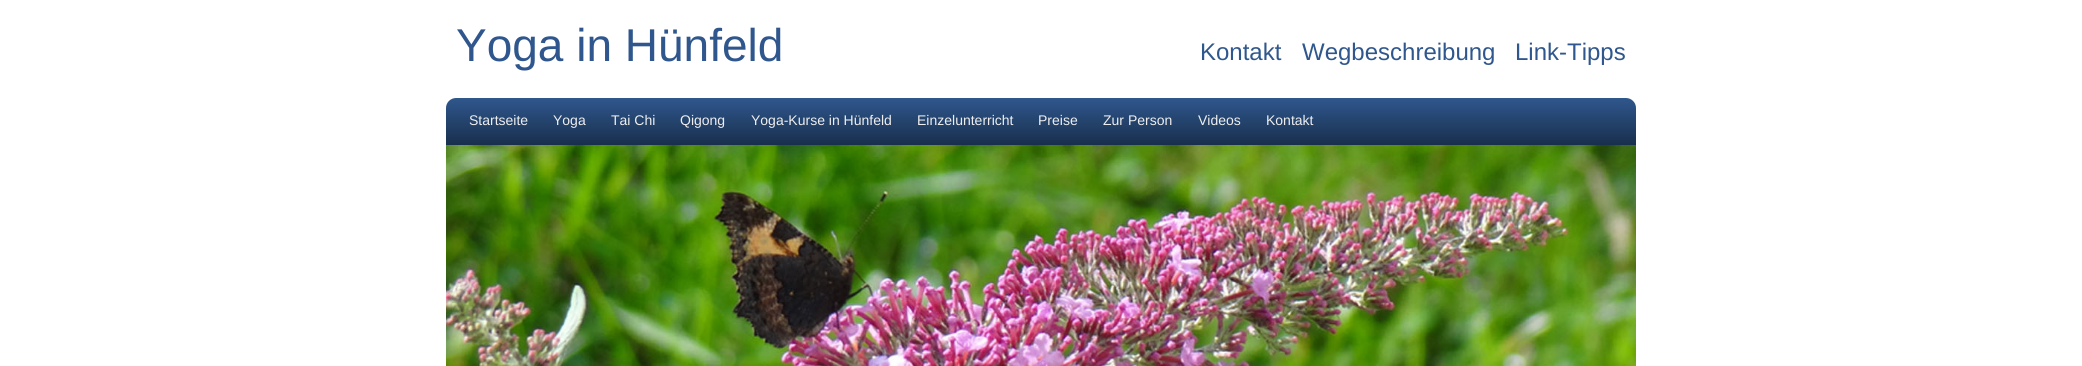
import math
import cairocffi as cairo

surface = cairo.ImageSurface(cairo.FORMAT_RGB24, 2082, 366)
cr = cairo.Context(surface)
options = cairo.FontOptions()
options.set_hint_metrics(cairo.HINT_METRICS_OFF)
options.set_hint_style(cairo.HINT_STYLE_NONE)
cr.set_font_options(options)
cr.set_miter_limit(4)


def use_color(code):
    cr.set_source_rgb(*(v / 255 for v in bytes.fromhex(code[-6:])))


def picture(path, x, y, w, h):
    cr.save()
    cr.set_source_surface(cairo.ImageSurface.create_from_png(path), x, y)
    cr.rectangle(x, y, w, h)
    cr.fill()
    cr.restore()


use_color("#ffffff")
cr.paint()
cr.select_font_face("Liberation Sans")
cr.set_font_size(46)
use_color("#2f578d")
cr.move_to(456, 61)
cr.show_text("Yoga in Hünfeld")
cr.set_font_size(24)
cr.move_to(1200, 60)
cr.show_text("Kontakt")
cr.move_to(1302, 60)
cr.show_text("Wegbeschreibung")
cr.move_to(1515, 60)
cr.show_text("Link-Tipps")
gradient = cairo.LinearGradient(1041, 98, 1041, 145)
gradient.add_color_stop_rgba(0, 0.184, 0.341, 0.553, 1)
gradient.add_color_stop_rgba(1, 0.098, 0.184, 0.302, 1)
cr.set_source(gradient)
cr.new_path()
cr.move_to(456, 98)
cr.line_to(1626, 98)
cr.curve_to(1631.5, 98, 1636, 102.5, 1636, 108)
cr.line_to(1636, 145)
cr.line_to(446, 145)
cr.line_to(446, 108)
cr.curve_to(446, 102.5, 450.5, 98, 456, 98)
cr.close_path()
cr.fill()
cr.set_font_size(14)
use_color("#eeeeee")
cr.move_to(469, 125)
cr.show_text("Startseite")
cr.move_to(553, 125)
cr.show_text("Yoga")
cr.move_to(611, 125)
cr.show_text("Tai Chi")
cr.move_to(680, 125)
cr.show_text("Qigong")
cr.move_to(751, 125)
cr.show_text("Yoga-Kurse in Hünfeld")
cr.move_to(917, 125)
cr.show_text("Einzelunterricht")
cr.move_to(1038, 125)
cr.show_text("Preise")
cr.move_to(1103, 125)
cr.show_text("Zur Person")
cr.move_to(1198, 125)
cr.show_text("Videos")
cr.move_to(1266, 125)
cr.show_text("Kontakt")
picture("img1.png", 446, 145, 1190, 221)
surface.write_to_png("result.png")
